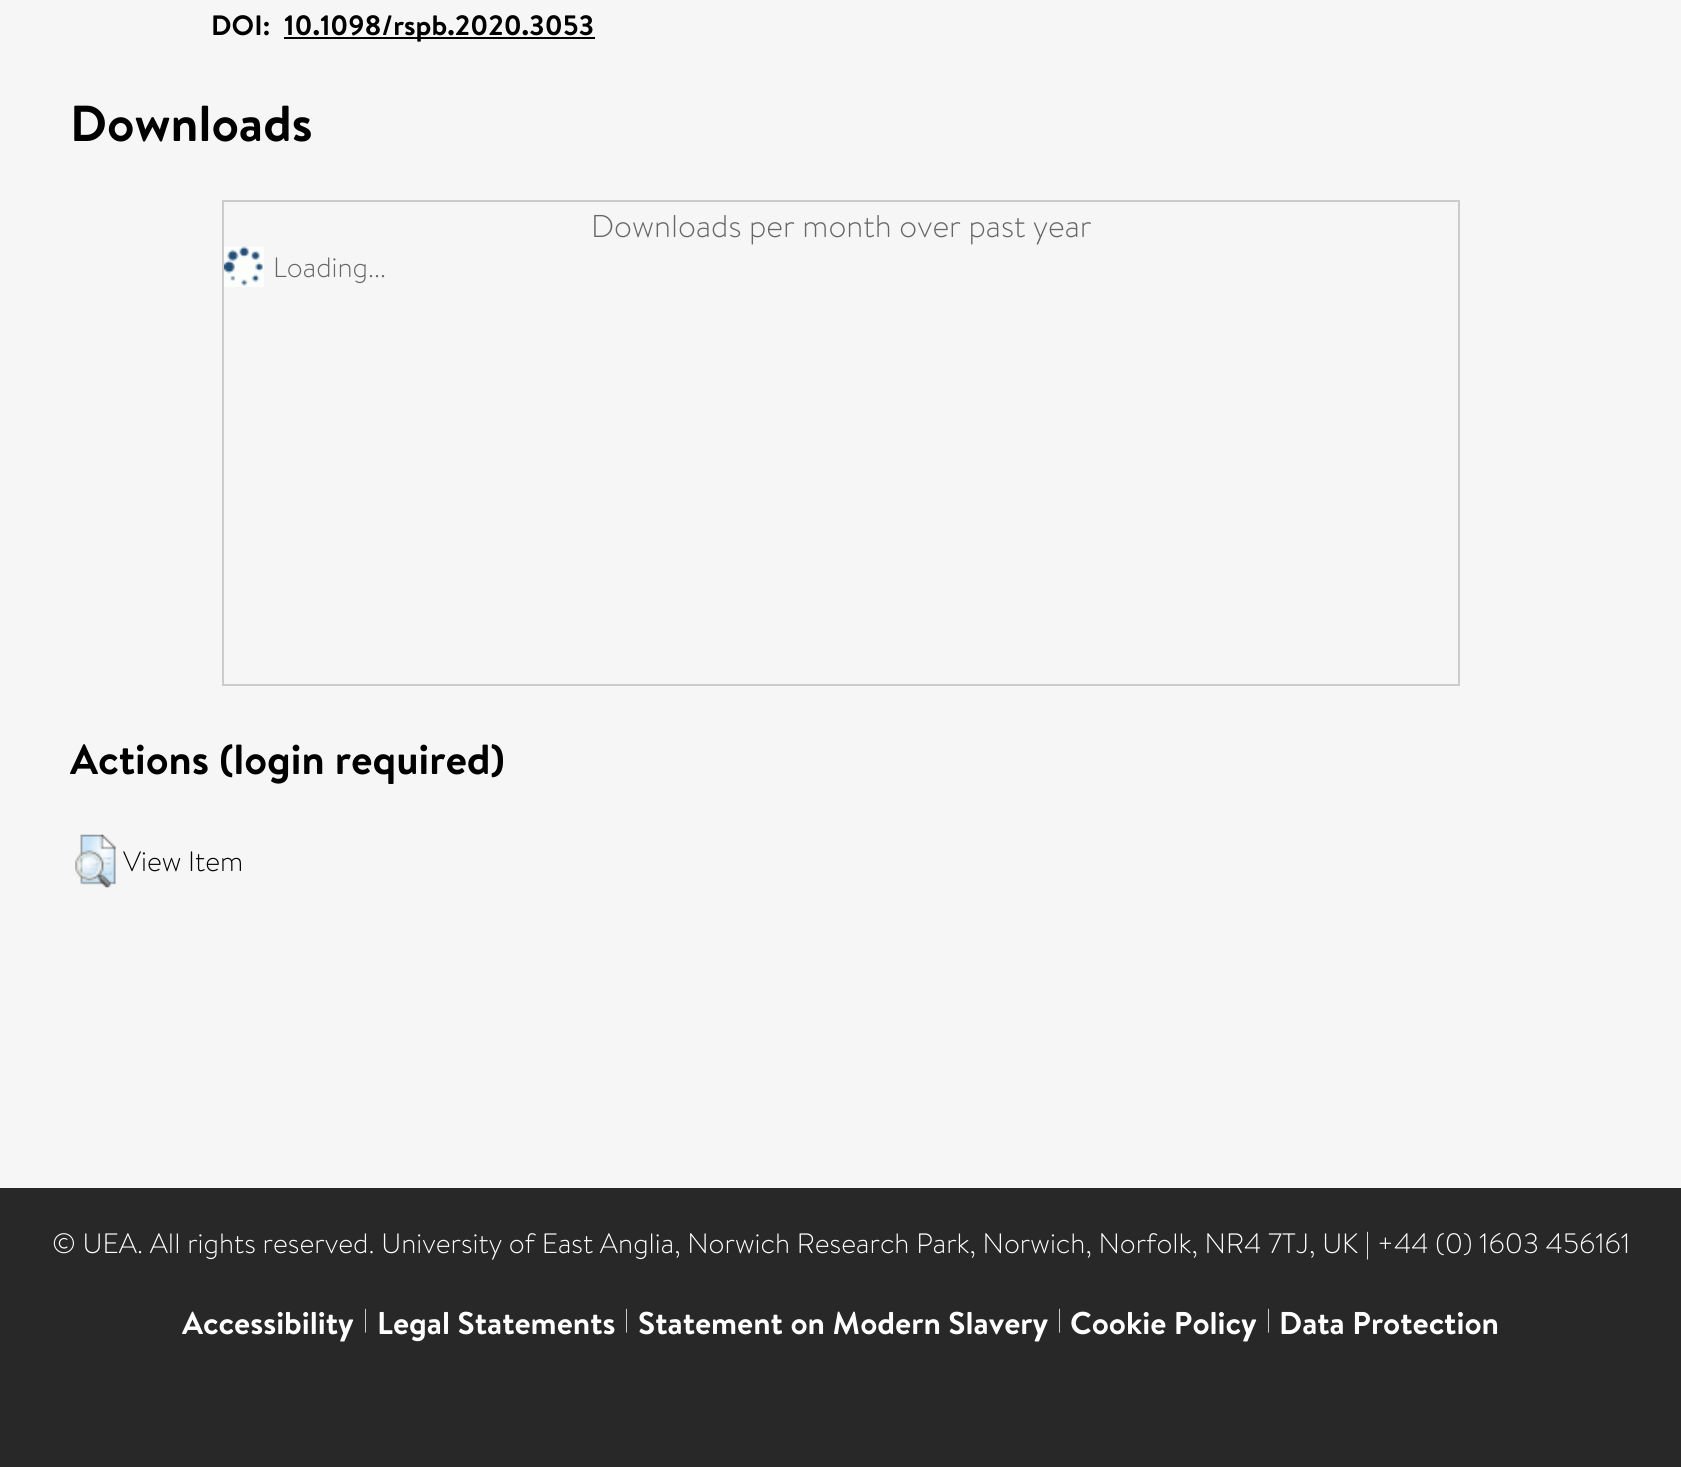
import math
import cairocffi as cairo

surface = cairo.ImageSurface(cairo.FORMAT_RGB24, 1681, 1467)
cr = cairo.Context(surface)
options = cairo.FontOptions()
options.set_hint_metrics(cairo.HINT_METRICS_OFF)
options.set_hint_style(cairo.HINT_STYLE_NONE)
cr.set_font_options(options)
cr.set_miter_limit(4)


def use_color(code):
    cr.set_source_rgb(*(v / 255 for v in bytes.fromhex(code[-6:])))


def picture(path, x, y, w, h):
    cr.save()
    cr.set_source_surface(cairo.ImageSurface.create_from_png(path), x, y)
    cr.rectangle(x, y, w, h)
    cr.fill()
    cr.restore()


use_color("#f6f6f6")
cr.paint()
cr.select_font_face("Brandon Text", cairo.FONT_SLANT_NORMAL, cairo.FONT_WEIGHT_BOLD)
cr.set_font_size(28)
use_color("#000000")
cr.move_to(211, 35)
cr.show_text("DOI:")
cr.rectangle(284, 37, 311, 2)
cr.fill()
cr.move_to(284, 35)
cr.show_text("10.1098/rspb.2020.3053")
cr.set_font_size(50.5)
cr.move_to(70, 141)
cr.show_text("Downloads")
cr.rectangle(223, 201, 1236, 484)
use_color("#cccccc")
cr.stroke()
cr.select_font_face("Brandon Text Light")
cr.set_font_size(31.5)
use_color("#666666")
cr.move_to(591, 237)
cr.show_text("Downloads per month over past year")
picture("img1.png", 224, 246, 40, 41)
cr.set_font_size(28)
cr.move_to(273, 277)
cr.show_text("Loading...")
cr.select_font_face("Brandon Text", cairo.FONT_SLANT_NORMAL, cairo.FONT_WEIGHT_BOLD)
cr.set_font_size(42)
use_color("#000000")
cr.move_to(70, 774)
cr.show_text("Actions (login required)")
picture("img2.png", 75, 834, 41, 54)
cr.select_font_face("Brandon Text Light")
cr.set_font_size(28)
cr.move_to(123, 871)
cr.show_text("View Item")
use_color("#282828")
cr.rectangle(0, 1188, 1681, 279)
cr.fill()
use_color("#ffffff")
cr.move_to(52, 1253)
cr.show_text("© UEA. All rights reserved. University of East Anglia, Norwich Research Park, Norwich, Norfolk, NR4 7TJ, UK | +44 (0) 1603 456161")
cr.select_font_face("Brandon Text", cairo.FONT_SLANT_NORMAL, cairo.FONT_WEIGHT_BOLD)
cr.set_font_size(31.5)
cr.move_to(182, 1334)
cr.show_text("Accessibility")
cr.select_font_face("Brandon Text Light")
cr.set_font_size(24)
cr.move_to(363, 1327)
cr.show_text("|")
cr.select_font_face("Brandon Text", cairo.FONT_SLANT_NORMAL, cairo.FONT_WEIGHT_BOLD)
cr.set_font_size(31.5)
cr.move_to(377, 1334)
cr.show_text("Legal Statements")
cr.select_font_face("Brandon Text Light")
cr.set_font_size(24)
cr.move_to(624, 1327)
cr.show_text("|")
cr.select_font_face("Brandon Text", cairo.FONT_SLANT_NORMAL, cairo.FONT_WEIGHT_BOLD)
cr.set_font_size(31.5)
cr.move_to(638, 1334)
cr.show_text("Statement on Modern Slavery")
cr.select_font_face("Brandon Text Light")
cr.set_font_size(24)
cr.move_to(1057, 1327)
cr.show_text("|")
cr.select_font_face("Brandon Text", cairo.FONT_SLANT_NORMAL, cairo.FONT_WEIGHT_BOLD)
cr.set_font_size(31.5)
cr.move_to(1070, 1334)
cr.show_text("Cookie Policy")
cr.select_font_face("Brandon Text Light")
cr.set_font_size(24)
cr.move_to(1266, 1327)
cr.show_text("|")
cr.select_font_face("Brandon Text", cairo.FONT_SLANT_NORMAL, cairo.FONT_WEIGHT_BOLD)
cr.set_font_size(31.5)
cr.move_to(1279, 1334)
cr.show_text("Data Protection")
surface.write_to_png("result.png")
